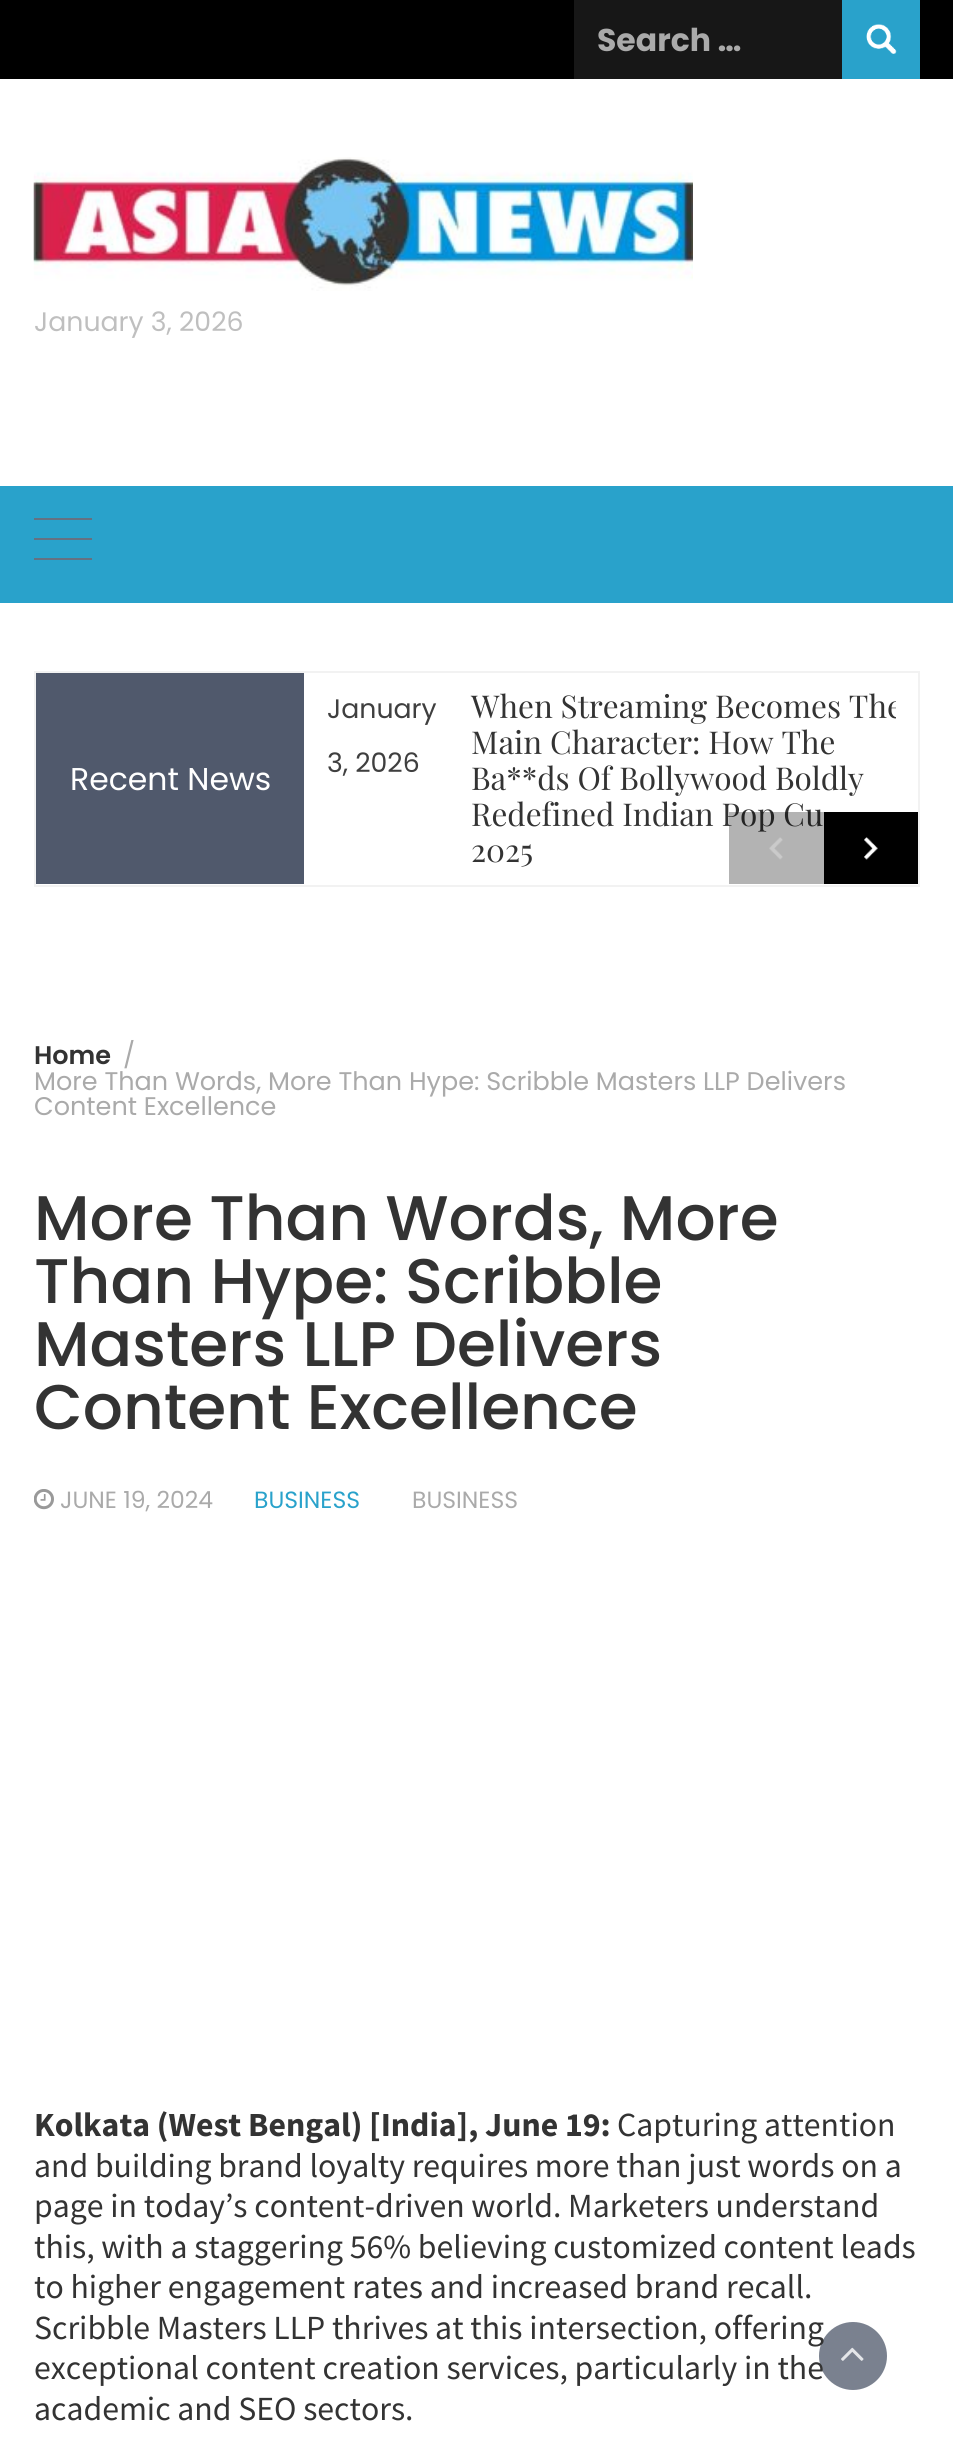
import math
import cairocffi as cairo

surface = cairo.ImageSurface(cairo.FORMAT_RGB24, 953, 2457)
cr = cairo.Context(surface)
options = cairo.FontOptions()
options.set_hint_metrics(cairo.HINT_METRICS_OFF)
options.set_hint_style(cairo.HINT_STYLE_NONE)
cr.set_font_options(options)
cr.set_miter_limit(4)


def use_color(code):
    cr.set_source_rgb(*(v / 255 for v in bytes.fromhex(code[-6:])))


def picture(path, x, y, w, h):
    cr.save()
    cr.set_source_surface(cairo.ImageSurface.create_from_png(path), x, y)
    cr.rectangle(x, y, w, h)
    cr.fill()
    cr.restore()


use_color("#ffffff")
cr.paint()
use_color("#000000")
cr.rectangle(0, 0, 953, 79)
cr.fill()
use_color("#171717")
cr.rectangle(574, 0, 268, 79)
cr.fill()
cr.select_font_face("Poppins", cairo.FONT_SLANT_NORMAL, cairo.FONT_WEIGHT_BOLD)
cr.set_font_size(31.5)
use_color("#aaaaaa")
cr.move_to(597, 51)
cr.show_text("Search …")
use_color("#29a2cb")
cr.rectangle(842, 0, 78, 79)
cr.fill()
picture("img1.png", 866, 24, 31, 30)
picture("img2.png", 33, 157, 660, 134)
cr.select_font_face("Poppins")
cr.set_font_size(26.75)
use_color("#bfbfbf")
cr.move_to(34, 331)
cr.show_text("January 3, 2026")
use_color("#29a2cb")
cr.rectangle(0, 486, 953, 117)
cr.fill()
use_color("#657182")
cr.rectangle(34, 518, 58, 2)
cr.fill()
cr.rectangle(34, 538, 58, 2)
cr.fill()
cr.rectangle(34, 558, 58, 2)
cr.fill()
cr.rectangle(35, 672, 884, 214)
use_color("#f2f2f2")
cr.stroke()
use_color("#50596c")
cr.rectangle(36, 673, 268, 211)
cr.fill()
cr.set_font_size(31.5)
use_color("#ffffff")
cr.move_to(70, 790)
cr.show_text("Recent News")
cr.set_font_size(26.75)
use_color("#3f3f3f")
cr.move_to(327, 718)
cr.show_text("January")
cr.move_to(327, 772)
cr.show_text("3, 2026")
cr.save()
cr.rectangle(326, 682, 570, 193)
cr.clip()
cr.select_font_face("Playfair Display")
cr.set_font_size(31.5)
use_color("#333333")
cr.move_to(471, 718)
cr.show_text("When Streaming Becomes The")
cr.restore()
cr.select_font_face("Playfair Display")
cr.set_font_size(31.5)
use_color("#333333")
cr.move_to(471, 754)
cr.show_text("Main Character: How The")
cr.move_to(471, 790)
cr.show_text("Ba**ds Of Bollywood Boldly")
cr.move_to(471, 826)
cr.show_text("Redefined Indian Pop Cu")
cr.move_to(471, 862)
cr.show_text("2025")
cr.set_source_rgba(0, 0, 0, 0.3)
cr.rectangle(729, 812, 95, 72)
cr.fill()
picture("img3.png", 769, 837, 14, 23)
use_color("#000000")
cr.rectangle(824, 812, 94, 72)
cr.fill()
picture("img4.png", 864, 837, 14, 23)
cr.select_font_face("Poppins SemiBold")
cr.set_font_size(25.5)
use_color("#333333")
cr.move_to(34, 1064)
cr.show_text("Home")
cr.select_font_face("Poppins")
use_color("#aaaaaa")
cr.move_to(123, 1064)
cr.show_text("/")
cr.move_to(34, 1090)
cr.show_text("More Than Words, More Than Hype: Scribble Masters LLP Delivers")
cr.move_to(34, 1115)
cr.show_text("Content Excellence")
cr.select_font_face("Poppins Medium")
cr.set_font_size(63)
use_color("#333333")
cr.move_to(34, 1240)
cr.show_text("More Than Words, More")
cr.move_to(34, 1303)
cr.show_text("Than Hype: Scribble")
cr.move_to(34, 1366)
cr.show_text("Masters LLP Delivers")
cr.move_to(34, 1429)
cr.show_text("Content Excellence")
picture("img5.png", 34, 1489, 20, 21)
cr.select_font_face("Poppins")
cr.set_font_size(23.5)
use_color("#aaaaaa")
cr.move_to(60, 1508)
cr.show_text("JUNE 19, 2024")
use_color("#29a2cb")
cr.move_to(254, 1508)
cr.show_text("BUSINESS")
use_color("#aaaaaa")
cr.move_to(412, 1508)
cr.show_text("BUSINESS")
cr.select_font_face("Source Sans Pro", cairo.FONT_SLANT_NORMAL, cairo.FONT_WEIGHT_BOLD)
cr.set_font_size(33.75)
use_color("#333333")
cr.move_to(34, 2136)
cr.show_text("Kolkata (West Bengal) [India], June 19:")
cr.select_font_face("Source Sans Pro")
cr.move_to(617, 2136)
cr.show_text("Capturing attention")
cr.move_to(34, 2177)
cr.show_text("and building brand loyalty requires more than just words on a")
cr.move_to(34, 2217)
cr.show_text("page in today’s content-driven world. Marketers understand")
cr.move_to(34, 2258)
cr.show_text("this, with a staggering 56% believing customized content leads")
cr.move_to(34, 2298)
cr.show_text("to higher engagement rates and increased brand recall.")
use_color("#7a818f")
cr.new_path()
cr.arc(853, 2356, 34, 0, 2 * math.pi)
cr.fill()
use_color("#333333")
cr.move_to(34, 2339)
cr.show_text("Scribble Masters LLP thrives at this intersection, offering")
cr.move_to(34, 2379)
cr.show_text("exceptional content creation services, particularly in the")
cr.move_to(34, 2420)
cr.show_text("academic and SEO sectors.")
picture("img6.png", 841, 2347, 23, 14)
surface.write_to_png("result.png")
